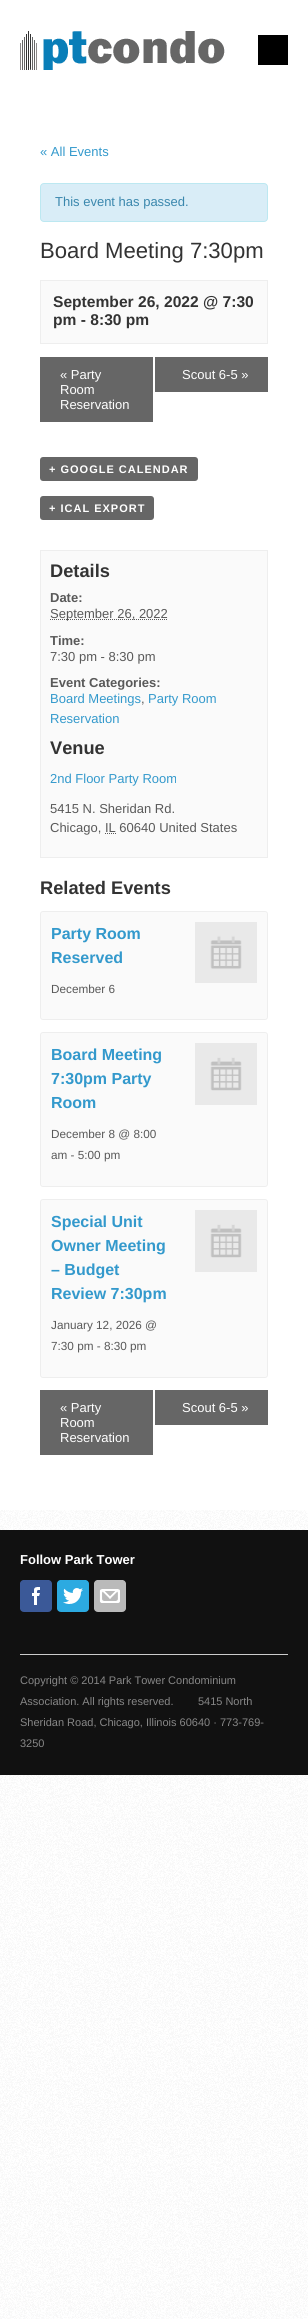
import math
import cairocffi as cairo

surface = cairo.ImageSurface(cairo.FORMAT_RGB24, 308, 2319)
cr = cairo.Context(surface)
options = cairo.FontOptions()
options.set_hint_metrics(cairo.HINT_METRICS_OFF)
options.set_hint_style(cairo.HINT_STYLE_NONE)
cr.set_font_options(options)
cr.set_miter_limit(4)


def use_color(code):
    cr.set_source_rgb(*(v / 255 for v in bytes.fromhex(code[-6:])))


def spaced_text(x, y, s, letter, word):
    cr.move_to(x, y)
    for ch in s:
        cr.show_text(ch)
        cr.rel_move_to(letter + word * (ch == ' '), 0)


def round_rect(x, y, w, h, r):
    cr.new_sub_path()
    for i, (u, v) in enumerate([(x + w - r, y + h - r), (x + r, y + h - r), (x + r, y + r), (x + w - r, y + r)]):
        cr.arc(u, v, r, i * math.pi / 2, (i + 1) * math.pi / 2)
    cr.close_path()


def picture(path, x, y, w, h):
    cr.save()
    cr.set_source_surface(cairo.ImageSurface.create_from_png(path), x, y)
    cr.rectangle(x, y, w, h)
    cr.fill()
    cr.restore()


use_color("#ffffff")
cr.paint()
picture("img1.png", 0, 1510, 308, 809)
picture("img2.png", 20, 31, 205, 39)
use_color("#000000")
cr.rectangle(258, 35, 30, 30)
cr.fill()
cr.select_font_face("Liberation Sans")
cr.set_font_size(13)
use_color("#3399cc")
cr.move_to(40, 156)
cr.show_text("« All Events")
use_color("#d9edf7")
round_rect(40.5, 183.5, 227, 38, 3.5)
cr.fill_preserve()
use_color("#bce8f1")
cr.set_line_width(1)
cr.stroke()
use_color("#3a87ad")
cr.move_to(55, 206)
cr.show_text("This event has passed.")
cr.set_font_size(22.1)
use_color("#333333")
cr.move_to(40, 258)
cr.show_text("Board Meeting 7:30pm")
use_color("#fafafa")
cr.rectangle(40.5, 280.5, 227, 63)
cr.fill_preserve()
use_color("#eeeeee")
cr.stroke()
cr.select_font_face("Liberation Sans", cairo.FONT_SLANT_NORMAL, cairo.FONT_WEIGHT_BOLD)
cr.set_font_size(15.6)
use_color("#333333")
cr.move_to(53, 307)
cr.show_text("September 26, 2022 @ 7:30")
cr.move_to(53, 325)
cr.show_text("pm - 8:30 pm")
use_color("#666666")
cr.rectangle(40, 357, 113, 65)
cr.fill()
cr.select_font_face("Liberation Sans")
cr.set_font_size(13)
use_color("#ffffff")
cr.move_to(60, 379)
cr.show_text("« Party")
cr.move_to(60, 394)
cr.show_text("Room")
cr.move_to(60, 409)
cr.show_text("Reservation")
use_color("#666666")
cr.rectangle(155, 357, 113, 35)
cr.fill()
use_color("#ffffff")
cr.move_to(182, 379)
cr.show_text("Scout 6-5 »")
use_color("#666666")
round_rect(40, 457, 158, 24, 3)
cr.fill()
cr.select_font_face("Liberation Sans", cairo.FONT_SLANT_NORMAL, cairo.FONT_WEIGHT_BOLD)
cr.set_font_size(11)
use_color("#ffffff")
spaced_text(49, 473, "+ GOOGLE CALENDAR", 1, 0)
use_color("#666666")
round_rect(40, 496, 114, 24, 3)
cr.fill()
use_color("#ffffff")
spaced_text(49, 512, "+ ICAL EXPORT", 1, 0)
use_color("#fafafa")
cr.rectangle(40.5, 550.5, 227, 307)
cr.fill_preserve()
use_color("#eeeeee")
cr.stroke()
cr.set_font_size(18.25)
use_color("#333333")
cr.move_to(50, 577)
cr.show_text("Details")
cr.set_font_size(13)
use_color("#595959")
cr.move_to(50, 602)
cr.show_text("Date:")
cr.new_path()
cr.move_to(50, 619.5)
cr.line_to(168, 619.5)
cr.set_dash([1, 1])
cr.stroke()
cr.select_font_face("Liberation Sans")
cr.move_to(50, 618)
cr.show_text("September 26, 2022")
cr.select_font_face("Liberation Sans", cairo.FONT_SLANT_NORMAL, cairo.FONT_WEIGHT_BOLD)
cr.move_to(50, 645)
cr.show_text("Time:")
cr.select_font_face("Liberation Sans")
cr.move_to(50, 661)
cr.show_text("7:30 pm - 8:30 pm")
cr.select_font_face("Liberation Sans", cairo.FONT_SLANT_NORMAL, cairo.FONT_WEIGHT_BOLD)
cr.move_to(50, 687)
cr.show_text("Event Categories:")
cr.select_font_face("Liberation Sans")
use_color("#3399cc")
cr.move_to(50, 703)
cr.show_text("Board Meetings")
use_color("#595959")
cr.move_to(141, 703)
cr.show_text(",")
use_color("#3399cc")
cr.move_to(148, 703)
cr.show_text("Party Room")
cr.move_to(50, 723)
cr.show_text("Reservation")
cr.select_font_face("Liberation Sans", cairo.FONT_SLANT_NORMAL, cairo.FONT_WEIGHT_BOLD)
cr.set_font_size(18.25)
use_color("#333333")
cr.move_to(50, 754)
cr.show_text("Venue")
cr.select_font_face("Liberation Sans")
cr.set_font_size(13)
use_color("#3399cc")
cr.move_to(50, 783)
cr.show_text("2nd Floor Party Room")
use_color("#595959")
cr.move_to(50, 813)
cr.show_text("5415 N. Sheridan Rd.")
cr.move_to(50, 832)
cr.show_text("Chicago, IL 60640 United States")
cr.new_path()
cr.move_to(105, 833.5)
cr.line_to(116, 833.5)
cr.stroke()
cr.select_font_face("Liberation Sans", cairo.FONT_SLANT_NORMAL, cairo.FONT_WEIGHT_BOLD)
cr.set_font_size(18.25)
use_color("#333333")
cr.move_to(40, 894)
cr.show_text("Related Events")
use_color("#fafafa")
round_rect(40.5, 911.5, 227, 108, 2.5)
cr.fill_preserve()
use_color("#eeeeee")
cr.set_dash([])
cr.stroke()
cr.set_font_size(16)
use_color("#3399cc")
cr.move_to(51, 939)
cr.show_text("Party Room")
cr.move_to(51, 963)
cr.show_text("Reserved")
cr.select_font_face("Liberation Sans")
cr.set_font_size(11.75)
use_color("#595959")
cr.move_to(51, 993)
cr.show_text("December 6")
picture("img3.png", 195, 922, 62, 61)
use_color("#fafafa")
round_rect(40.5, 1032.5, 227, 154, 2.5)
cr.fill_preserve()
use_color("#eeeeee")
cr.stroke()
cr.select_font_face("Liberation Sans", cairo.FONT_SLANT_NORMAL, cairo.FONT_WEIGHT_BOLD)
cr.set_font_size(16)
use_color("#3399cc")
cr.move_to(51, 1060)
cr.show_text("Board Meeting")
cr.move_to(51, 1084)
cr.show_text("7:30pm Party")
cr.move_to(51, 1108)
cr.show_text("Room")
cr.select_font_face("Liberation Sans")
cr.set_font_size(11.75)
use_color("#595959")
cr.move_to(51, 1138)
cr.show_text("December 8 @ 8:00")
cr.move_to(51, 1159)
cr.show_text("am - 5:00 pm")
picture("img4.png", 195, 1043, 62, 62)
use_color("#fafafa")
round_rect(40.5, 1199.5, 227, 178, 2.5)
cr.fill_preserve()
use_color("#eeeeee")
cr.stroke()
cr.select_font_face("Liberation Sans", cairo.FONT_SLANT_NORMAL, cairo.FONT_WEIGHT_BOLD)
cr.set_font_size(16)
use_color("#3399cc")
cr.move_to(51, 1227)
cr.show_text("Special Unit")
cr.move_to(51, 1251)
cr.show_text("Owner Meeting")
cr.move_to(51, 1275)
cr.show_text("– Budget")
cr.move_to(51, 1299)
cr.show_text("Review 7:30pm")
cr.select_font_face("Liberation Sans")
cr.set_font_size(11.75)
use_color("#595959")
cr.move_to(51, 1329)
cr.show_text("January 12, 2026 @")
cr.move_to(51, 1350)
cr.show_text("7:30 pm - 8:30 pm")
picture("img4.png", 195, 1210, 62, 62)
use_color("#666666")
cr.rectangle(40, 1390, 113, 65)
cr.fill()
cr.set_font_size(13)
use_color("#ffffff")
cr.move_to(60, 1412)
cr.show_text("« Party")
cr.move_to(60, 1427)
cr.show_text("Room")
cr.move_to(60, 1442)
cr.show_text("Reservation")
use_color("#666666")
cr.rectangle(155, 1390, 113, 35)
cr.fill()
use_color("#ffffff")
cr.move_to(182, 1412)
cr.show_text("Scout 6-5 »")
use_color("#111111")
cr.rectangle(0, 1530, 308, 245)
cr.fill()
cr.select_font_face("Liberation Sans", cairo.FONT_SLANT_NORMAL, cairo.FONT_WEIGHT_BOLD)
use_color("#ffffff")
cr.move_to(20, 1564)
cr.show_text("Follow Park Tower")
picture("img5.png", 20, 1580, 32, 32)
picture("img6.png", 57, 1580, 32, 32)
picture("img7.png", 94, 1580, 32, 32)
use_color("#cccccc")
cr.rectangle(20, 1654, 268, 1)
cr.fill()
cr.select_font_face("Liberation Sans")
cr.set_font_size(11)
use_color("#878787")
cr.move_to(20, 1684)
cr.show_text("Copyright © 2014 Park Tower Condominium")
cr.move_to(20, 1705)
cr.show_text("Association. All rights reserved.        5415 North")
cr.move_to(20, 1726)
cr.show_text("Sheridan Road, Chicago, Illinois 60640 · 773-769-")
cr.move_to(20, 1747)
cr.show_text("3250")
surface.write_to_png("result.png")
